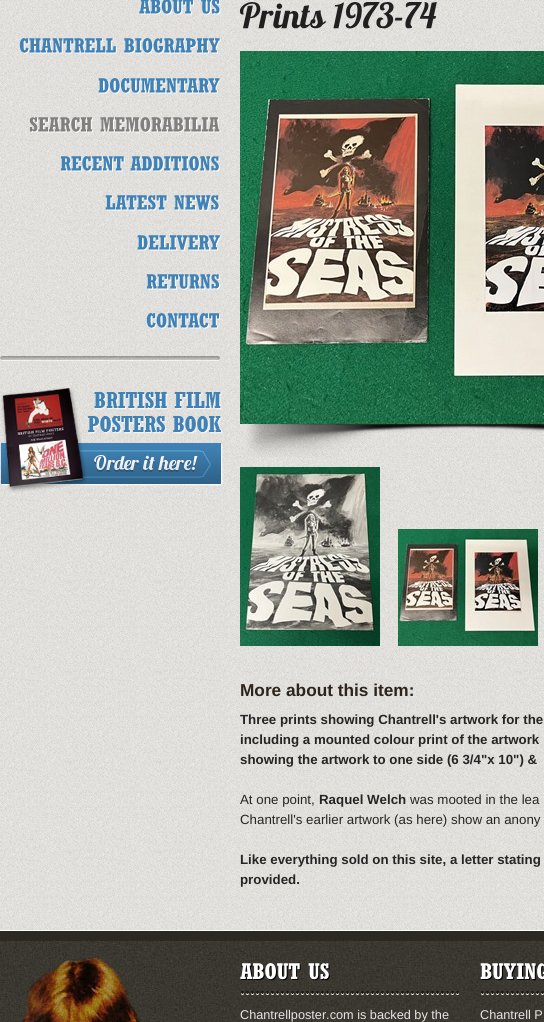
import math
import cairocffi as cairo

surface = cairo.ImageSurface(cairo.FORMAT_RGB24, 544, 1022)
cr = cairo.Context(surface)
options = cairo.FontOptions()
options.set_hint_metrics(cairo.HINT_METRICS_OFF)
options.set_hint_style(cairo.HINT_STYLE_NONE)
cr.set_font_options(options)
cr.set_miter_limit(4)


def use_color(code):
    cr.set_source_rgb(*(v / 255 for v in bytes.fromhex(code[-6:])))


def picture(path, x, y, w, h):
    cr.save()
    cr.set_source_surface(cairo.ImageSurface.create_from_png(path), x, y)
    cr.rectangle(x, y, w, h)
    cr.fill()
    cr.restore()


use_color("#2b2922")
cr.paint()
picture("img1.png", 0, 0, 544, 930)
use_color("#fdfdfc")
cr.rectangle(0, 930, 544, 1)
cr.fill()
picture("img2.png", 139, 0, 55, 15)
picture("img3.png", 201, 0, 20, 15)
picture("img4.png", 19, 38, 98, 16)
picture("img5.png", 124, 38, 97, 16)
picture("img6.png", 98, 78, 123, 16)
picture("img7.png", 29, 117, 64, 16)
picture("img8.png", 100, 117, 121, 16)
picture("img9.png", 60, 156, 65, 16)
picture("img10.png", 130, 156, 90, 16)
picture("img11.png", 105, 195, 63, 16)
picture("img12.png", 174, 195, 46, 16)
picture("img13.png", 137, 235, 84, 16)
picture("img14.png", 146, 274, 74, 16)
picture("img15.png", 146, 313, 74, 16)
picture("img16.png", 0, 356, 220, 5)
picture("img17.png", 1, 387, 222, 105)
picture("img18.png", 239, 2, 87, 27)
picture("img19.png", 333, 2, 104, 27)
picture("img20.png", 247, 424, 297, 33)
picture("img21.png", 240, 51, 304, 373)
picture("img22.png", 240, 467, 140, 179)
picture("img23.png", 398, 529, 140, 117)
cr.select_font_face("Liberation Sans", cairo.FONT_SLANT_NORMAL, cairo.FONT_WEIGHT_BOLD)
cr.set_font_size(17.25)
use_color("#2f241b")
cr.move_to(240, 696)
cr.show_text("More about this item:")
cr.set_font_size(13.3)
use_color("#252525")
cr.move_to(240, 724)
cr.show_text("Three prints showing Chantrell's artwork for the")
cr.move_to(240, 744)
cr.show_text("including a mounted colour print of the artwork")
cr.move_to(240, 764)
cr.show_text("showing the artwork to one side (6 3/4\"x 10\") &")
cr.select_font_face("Liberation Sans")
cr.move_to(240, 804)
cr.show_text("At one point,")
cr.select_font_face("Liberation Sans", cairo.FONT_SLANT_NORMAL, cairo.FONT_WEIGHT_BOLD)
cr.move_to(319, 804)
cr.show_text("Raquel Welch")
cr.select_font_face("Liberation Sans")
cr.move_to(410, 804)
cr.show_text("was mooted in the lea")
cr.move_to(240, 824)
cr.show_text("Chantrell's earlier artwork (as here) show an anony")
cr.select_font_face("Liberation Sans", cairo.FONT_SLANT_NORMAL, cairo.FONT_WEIGHT_BOLD)
cr.move_to(240, 864)
cr.show_text("Like everything sold on this site, a letter stating")
cr.move_to(240, 884)
cr.show_text("provided.")
picture("img24.png", 220, 939, 324, 83)
picture("img25.png", 0, 939, 220, 83)
picture("img26.png", 241, 991, 218, 4)
picture("img27.png", 240, 963, 61, 18)
picture("img28.png", 308, 963, 22, 18)
cr.select_font_face("Liberation Sans")
cr.set_font_size(12.7)
use_color("#e5e5e5")
cr.move_to(240, 1019)
cr.show_text("Chantrellposter.com is backed by the")
picture("img29.png", 481, 991, 63, 4)
picture("img30.png", 480, 963, 64, 18)
cr.move_to(480, 1019)
cr.show_text("Chantrell P")
surface.write_to_png("result.png")
